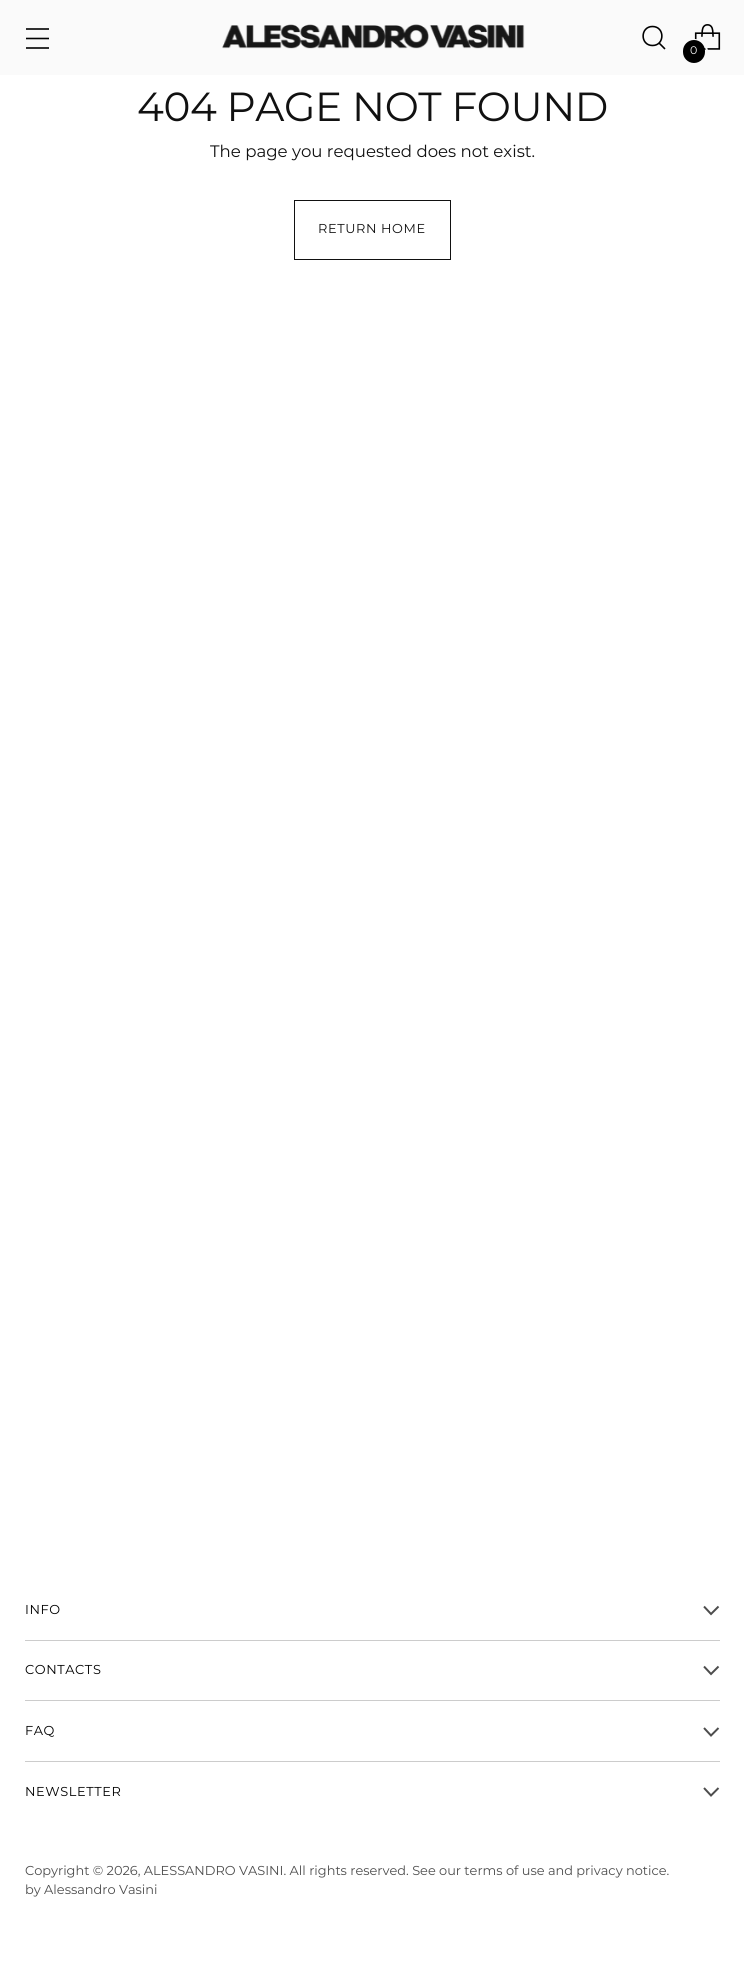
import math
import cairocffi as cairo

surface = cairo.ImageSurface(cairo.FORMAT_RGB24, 744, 1980)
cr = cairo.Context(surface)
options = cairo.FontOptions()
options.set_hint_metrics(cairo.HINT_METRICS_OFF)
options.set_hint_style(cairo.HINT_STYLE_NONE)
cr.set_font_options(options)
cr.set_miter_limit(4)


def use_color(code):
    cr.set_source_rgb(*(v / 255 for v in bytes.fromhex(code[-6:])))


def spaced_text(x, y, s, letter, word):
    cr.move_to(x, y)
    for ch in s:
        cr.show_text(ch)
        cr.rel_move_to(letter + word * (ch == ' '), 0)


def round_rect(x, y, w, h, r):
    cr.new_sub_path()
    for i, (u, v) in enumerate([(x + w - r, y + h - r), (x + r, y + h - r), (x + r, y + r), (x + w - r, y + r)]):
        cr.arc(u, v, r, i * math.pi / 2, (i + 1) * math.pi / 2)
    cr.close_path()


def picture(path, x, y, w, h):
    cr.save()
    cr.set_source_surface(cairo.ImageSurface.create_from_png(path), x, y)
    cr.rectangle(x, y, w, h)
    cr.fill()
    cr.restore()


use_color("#ffffff")
cr.paint()
use_color("#fafafa")
cr.rectangle(0, 0, 744, 75)
cr.fill()
cr.new_path()
cr.move_to(26, 38.5)
cr.line_to(49, 38.5)
cr.move_to(26, 29)
cr.line_to(49, 29)
cr.move_to(26, 48)
cr.line_to(49, 48)
use_color("#000000")
cr.set_line_width(1.6)
cr.stroke()
picture("img1.png", 222, 24, 303, 25)
cr.new_path()
cr.move_to(652.5, 45.5)
cr.curve_to(665, 45.5, 665, 26.5, 652.5, 26.5)
cr.curve_to(640, 26.5, 640, 45.5, 652.5, 45.5)
cr.close_path()
cr.set_line_cap(cairo.LINE_CAP_ROUND)
cr.stroke()
cr.new_path()
cr.move_to(659, 43)
cr.line_to(665, 49)
cr.set_line_cap(cairo.LINE_CAP_BUTT)
cr.stroke()
picture("img2.png", 694, 24, 27, 26)
round_rect(682, 40, 25, 24, 12)
use_color("#fafafa")
cr.set_line_width(2)
cr.stroke()
use_color("#000000")
round_rect(683, 40, 22, 23, 11)
cr.fill()
cr.select_font_face("Montserrat")
cr.set_font_size(11)
use_color("#fafafa")
cr.move_to(690, 54)
cr.show_text("0")
cr.set_font_size(40.6)
use_color("#111111")
spaced_text(137, 121, "404 PAGE NOT FOUND", -0.4, 0)
cr.set_font_size(16.6)
cr.move_to(210, 157)
cr.show_text("The page you requested does not exist.")
cr.rectangle(294.5, 200.5, 156, 59)
cr.set_line_width(1)
cr.stroke()
cr.set_font_size(12.9)
spaced_text(318, 233, "RETURN HOME", 0.6, 0)
use_color("#cccccc")
cr.rectangle(25, 1640, 695, 1)
cr.fill()
use_color("#000000")
spaced_text(25, 1614, "INFO", 0.6, 0)
cr.new_path()
cr.move_to(704, 1606.5)
cr.line_to(711, 1614)
cr.line_to(718.5, 1606.5)
use_color("#4d4d4d")
cr.set_line_width(2)
cr.stroke()
use_color("#cccccc")
cr.rectangle(25, 1700, 695, 1)
cr.fill()
use_color("#000000")
spaced_text(25, 1674, "CONTACTS", 0.6, 0)
cr.new_path()
cr.move_to(704, 1666.5)
cr.line_to(711, 1674)
cr.line_to(718.5, 1666.5)
use_color("#4d4d4d")
cr.stroke()
use_color("#cccccc")
cr.rectangle(25, 1761, 695, 1)
cr.fill()
use_color("#000000")
spaced_text(25, 1735, "FAQ", 0.6, 0)
cr.new_path()
cr.move_to(704, 1728)
cr.line_to(711, 1735.5)
cr.line_to(718.5, 1728)
use_color("#4d4d4d")
cr.stroke()
use_color("#000000")
spaced_text(25, 1796, "NEWSLETTER", 0.6, 0)
cr.new_path()
cr.move_to(704, 1788)
cr.line_to(711, 1795.5)
cr.line_to(718.5, 1788)
use_color("#4d4d4d")
cr.stroke()
cr.move_to(25, 1875)
cr.show_text("Copyright © 2026, ALESSANDRO VASINI. All rights reserved. See our terms of use and privacy notice.")
cr.move_to(25, 1894)
cr.show_text("by Alessandro Vasini")
surface.write_to_png("result.png")
